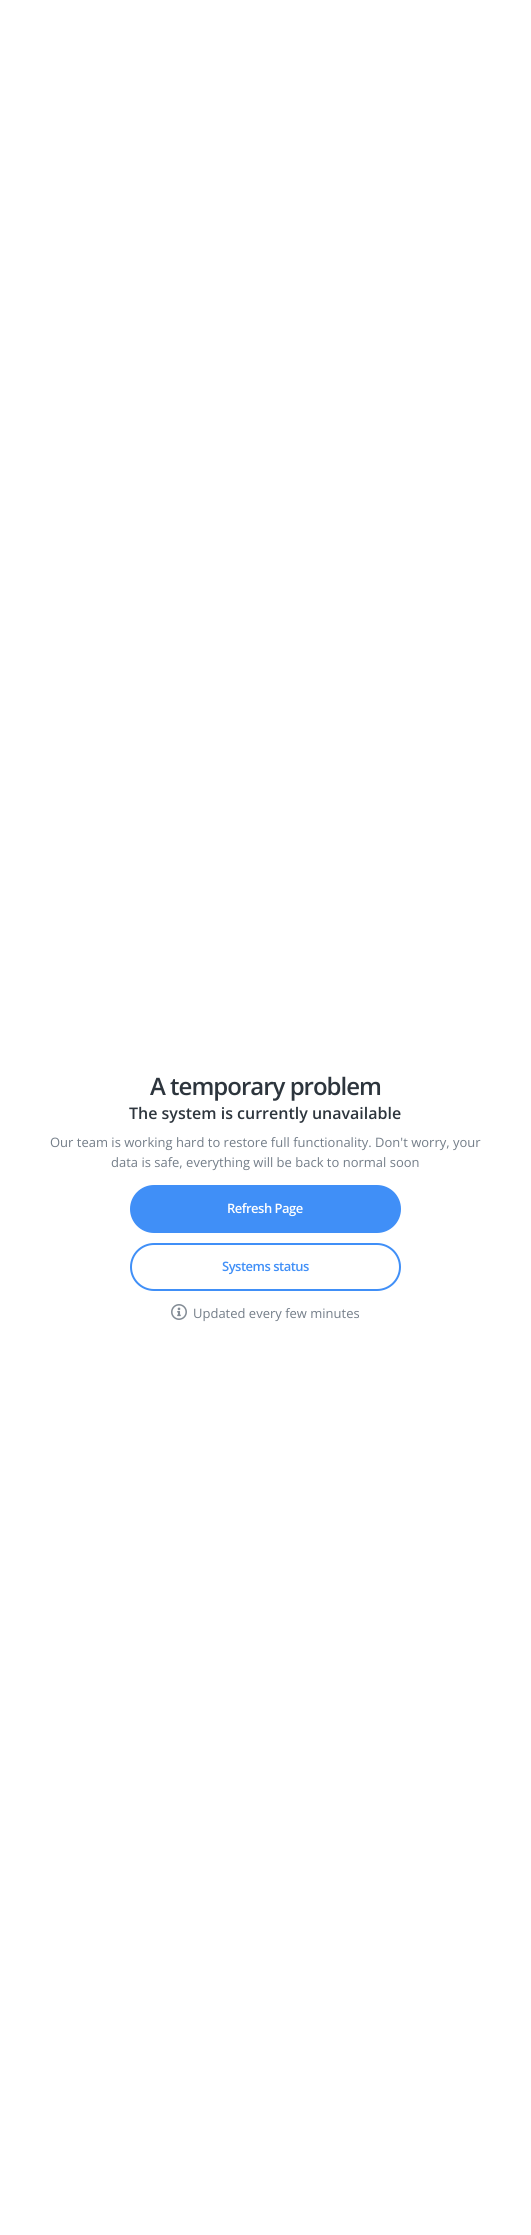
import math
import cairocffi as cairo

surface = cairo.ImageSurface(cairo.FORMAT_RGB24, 531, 2235)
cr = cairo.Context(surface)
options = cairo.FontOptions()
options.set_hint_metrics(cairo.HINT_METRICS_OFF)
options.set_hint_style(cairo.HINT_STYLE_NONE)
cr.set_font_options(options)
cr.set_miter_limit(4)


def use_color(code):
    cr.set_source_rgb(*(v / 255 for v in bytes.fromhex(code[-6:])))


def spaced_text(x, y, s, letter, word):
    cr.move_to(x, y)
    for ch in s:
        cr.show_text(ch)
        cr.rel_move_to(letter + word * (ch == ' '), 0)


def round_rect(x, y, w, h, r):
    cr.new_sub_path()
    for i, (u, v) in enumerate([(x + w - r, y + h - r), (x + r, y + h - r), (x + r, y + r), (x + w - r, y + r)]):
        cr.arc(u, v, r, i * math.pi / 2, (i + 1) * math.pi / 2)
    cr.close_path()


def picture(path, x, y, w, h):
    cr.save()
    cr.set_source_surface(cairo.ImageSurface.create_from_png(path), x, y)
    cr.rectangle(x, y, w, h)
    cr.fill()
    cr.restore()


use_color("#ffffff")
cr.paint()
cr.select_font_face("Open Sans SemiBold")
cr.set_font_size(24)
use_color("#2d353d")
spaced_text(150, 1095, "A temporary problem", -1, 0)
cr.set_font_size(16)
cr.move_to(129, 1119)
cr.show_text("The system is currently unavailable")
cr.select_font_face("Open Sans")
cr.set_font_size(13)
use_color("#737d88")
cr.move_to(50, 1147)
cr.show_text("Our team is working hard to restore full functionality. Don't worry, your")
cr.move_to(111, 1167)
cr.show_text("data is safe, everything will be back to normal soon")
use_color("#408ff7")
round_rect(131, 1186, 269, 46, 23)
cr.fill_preserve()
cr.stroke()
cr.select_font_face("Open Sans SemiBold")
use_color("#ffffff")
spaced_text(227, 1213, "Refresh Page", -0.5, 0)
round_rect(131, 1244, 269, 46, 23)
use_color("#408ff7")
cr.stroke()
spaced_text(222, 1271, "Systems status", -0.5, 0)
picture("img1.png", 171, 1304, 16, 16)
cr.select_font_face("Open Sans")
use_color("#737d88")
cr.move_to(193, 1318)
cr.show_text("Updated every few minutes")
surface.write_to_png("result.png")
